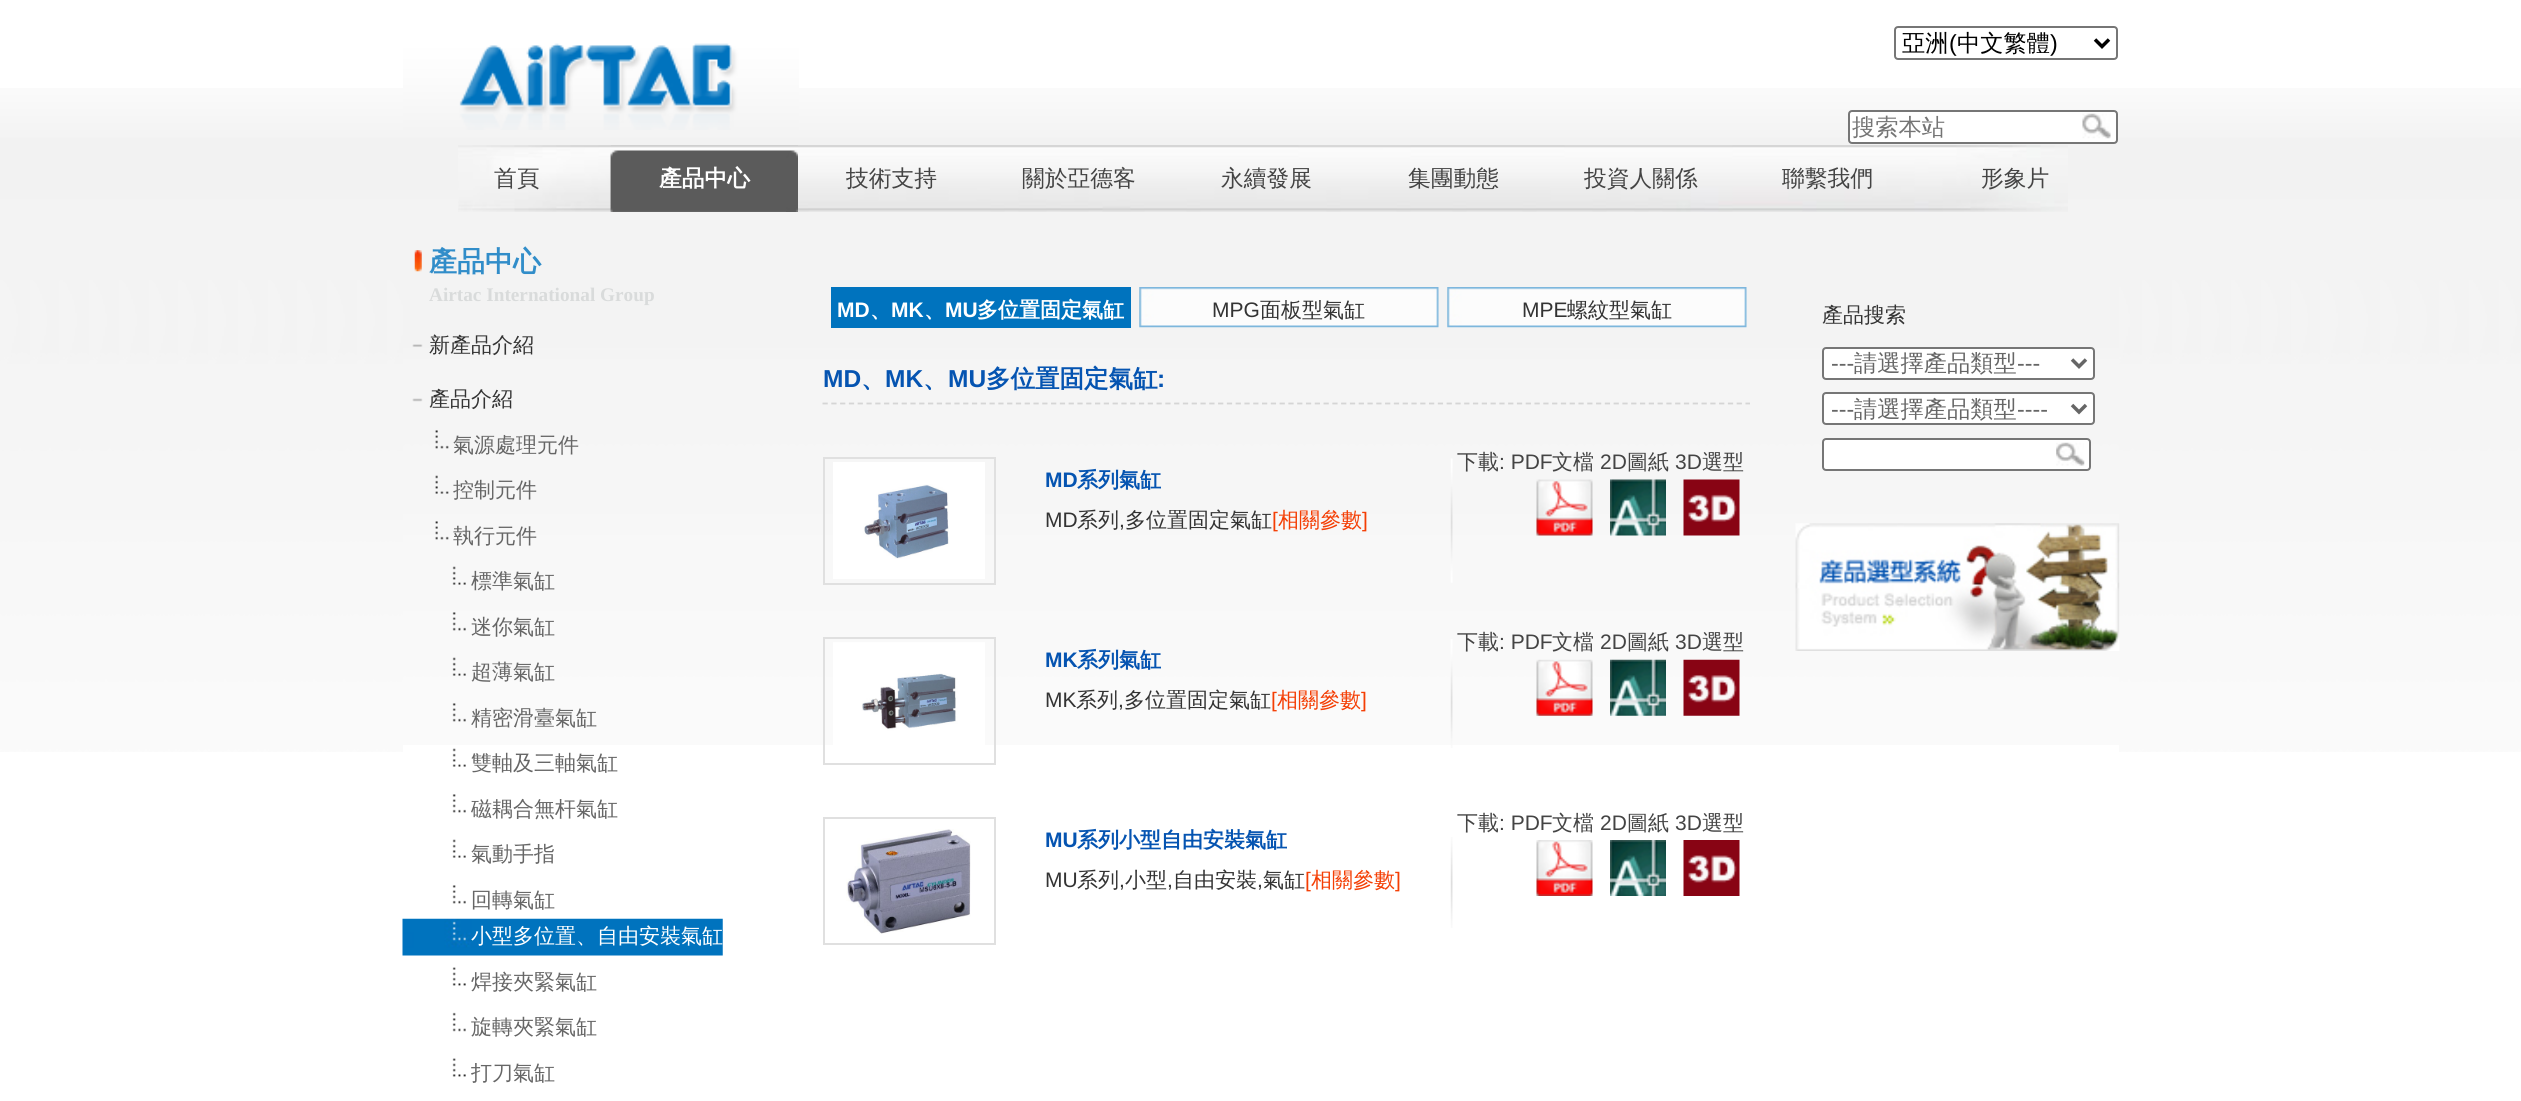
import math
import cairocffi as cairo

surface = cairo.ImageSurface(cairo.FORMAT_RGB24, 2521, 1101)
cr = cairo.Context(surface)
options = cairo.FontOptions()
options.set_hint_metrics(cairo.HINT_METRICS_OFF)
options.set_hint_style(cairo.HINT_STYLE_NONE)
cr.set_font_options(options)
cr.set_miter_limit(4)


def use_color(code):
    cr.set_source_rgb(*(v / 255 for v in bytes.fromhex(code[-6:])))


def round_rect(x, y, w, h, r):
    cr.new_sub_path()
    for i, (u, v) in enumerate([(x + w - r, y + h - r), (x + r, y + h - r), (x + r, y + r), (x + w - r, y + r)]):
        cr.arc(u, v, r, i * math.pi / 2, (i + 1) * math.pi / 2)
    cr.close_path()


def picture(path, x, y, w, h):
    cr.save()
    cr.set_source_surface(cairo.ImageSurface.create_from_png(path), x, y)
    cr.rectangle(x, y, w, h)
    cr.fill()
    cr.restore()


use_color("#ffffff")
cr.paint()
picture("img1.png", 0, 88, 2521, 664)
picture("img2.png", 403, 43, 396, 87)
use_color("#ffffff")
round_rect(1849, 111, 268, 32, 3)
cr.fill_preserve()
use_color("#767676")
cr.stroke()
cr.select_font_face("WenQuanYi Zen Hei Medium")
cr.set_font_size(23.25)
use_color("#757575")
cr.move_to(1852, 135)
cr.show_text("搜索本站")
picture("img3.png", 2082, 113, 29, 26)
round_rect(1895, 27, 222, 32, 3)
use_color("#767676")
cr.stroke()
cr.new_path()
cr.move_to(2095, 39.5)
cr.line_to(2102, 46.5)
cr.line_to(2109, 39.5)
use_color("#000000")
cr.set_line_width(3.5)
cr.stroke()
cr.move_to(1902, 51)
cr.show_text("亞洲")
cr.select_font_face("Liberation Sans")
cr.move_to(1949, 51)
cr.show_text("(")
cr.select_font_face("WenQuanYi Zen Hei Medium")
cr.move_to(1957, 51)
cr.show_text("中文繁體")
cr.select_font_face("Liberation Sans")
cr.move_to(2050, 51)
cr.show_text(")")
picture("img4.png", 458, 145, 1610, 67)
cr.select_font_face("WenQuanYi Zen Hei Medium")
cr.set_font_size(22.75)
use_color("#444444")
cr.move_to(494, 186)
cr.show_text("首頁")
picture("img5.png", 610, 145, 188, 67)
picture("img6.png", 610, 153, 188, 59)
picture("img7.png", 786, 150, 12, 62)
cr.select_font_face("WenQuanYi Zen Hei", cairo.FONT_SLANT_NORMAL, cairo.FONT_WEIGHT_BOLD)
use_color("#ffffff")
cr.move_to(659, 186)
cr.show_text("產品中心")
cr.select_font_face("WenQuanYi Zen Hei Medium")
use_color("#444444")
cr.move_to(846, 186)
cr.show_text("技術支持")
cr.move_to(1022, 186)
cr.show_text("關於亞德客")
cr.move_to(1221, 186)
cr.show_text("永續發展")
cr.move_to(1408, 186)
cr.show_text("集團動態")
cr.move_to(1584, 186)
cr.show_text("投資人關係")
cr.move_to(1782, 186)
cr.show_text("聯繫我們")
cr.move_to(1981, 186)
cr.show_text("形象片")
use_color("#ffffff")
cr.rectangle(403, 745, 1716, 7)
cr.fill()
picture("img8.png", 403, 212, 1716, 533)
picture("img9.png", 414, 250, 8, 22)
cr.select_font_face("WenQuanYi Zen Hei", cairo.FONT_SLANT_NORMAL, cairo.FONT_WEIGHT_BOLD)
cr.set_font_size(28)
use_color("#318dc9")
cr.move_to(429, 271)
cr.show_text("產品中心")
cr.select_font_face("Liberation Serif", cairo.FONT_SLANT_NORMAL, cairo.FONT_WEIGHT_BOLD)
cr.set_font_size(19.25)
use_color("#d9dbdb")
cr.move_to(429, 301)
cr.show_text("Airtac International Group")
picture("img10.png", 412, 344, 11, 3)
cr.select_font_face("WenQuanYi Zen Hei Medium")
cr.set_font_size(21)
use_color("#333333")
cr.move_to(429, 352)
cr.show_text("新產品介紹")
picture("img11.png", 412, 398, 11, 4)
cr.move_to(429, 406)
cr.show_text("產品介紹")
picture("img12.png", 435, 430, 14, 19)
use_color("#666666")
cr.move_to(453, 452)
cr.show_text("氣源處理元件")
picture("img13.png", 435, 475, 14, 19)
cr.move_to(453, 497)
cr.show_text("控制元件")
picture("img14.png", 435, 521, 14, 19)
cr.move_to(453, 543)
cr.show_text("執行元件")
picture("img15.png", 452, 566, 14, 19)
cr.move_to(471, 588)
cr.show_text("標準氣缸")
picture("img16.png", 452, 612, 14, 19)
cr.move_to(471, 634)
cr.show_text("迷你氣缸")
picture("img17.png", 452, 657, 14, 19)
cr.move_to(471, 679)
cr.show_text("超薄氣缸")
picture("img18.png", 452, 703, 14, 19)
cr.move_to(471, 725)
cr.show_text("精密滑臺氣缸")
picture("img19.png", 452, 748, 14, 19)
cr.move_to(471, 770)
cr.show_text("雙軸及三軸氣缸")
picture("img20.png", 452, 794, 14, 19)
cr.move_to(471, 816)
cr.show_text("磁耦合無杆氣缸")
picture("img19.png", 452, 839, 14, 19)
cr.move_to(471, 861)
cr.show_text("氣動手指")
picture("img20.png", 452, 885, 14, 19)
cr.move_to(471, 907)
cr.show_text("回轉氣缸")
picture("img21.png", 402, 918, 321, 38)
use_color("#ffffff")
cr.move_to(471, 943)
cr.show_text("小型多位置、自由安裝氣缸")
picture("img22.png", 452, 967, 14, 19)
use_color("#666666")
cr.move_to(471, 989)
cr.show_text("焊接夾緊氣缸")
picture("img23.png", 452, 1012, 14, 20)
cr.move_to(471, 1034)
cr.show_text("旋轉夾緊氣缸")
picture("img22.png", 452, 1058, 14, 19)
cr.move_to(471, 1080)
cr.show_text("打刀氣缸")
use_color("#0073be")
cr.rectangle(831, 287, 300, 41)
cr.fill()
cr.select_font_face("Liberation Sans", cairo.FONT_SLANT_NORMAL, cairo.FONT_WEIGHT_BOLD)
use_color("#ffffff")
cr.move_to(837, 317)
cr.show_text("MD")
cr.select_font_face("WenQuanYi Zen Hei", cairo.FONT_SLANT_NORMAL, cairo.FONT_WEIGHT_BOLD)
cr.move_to(870, 317)
cr.show_text("、")
cr.select_font_face("Liberation Sans", cairo.FONT_SLANT_NORMAL, cairo.FONT_WEIGHT_BOLD)
cr.move_to(891, 317)
cr.show_text("MK")
cr.select_font_face("WenQuanYi Zen Hei", cairo.FONT_SLANT_NORMAL, cairo.FONT_WEIGHT_BOLD)
cr.move_to(924, 317)
cr.show_text("、")
cr.select_font_face("Liberation Sans", cairo.FONT_SLANT_NORMAL, cairo.FONT_WEIGHT_BOLD)
cr.move_to(945, 317)
cr.show_text("MU")
cr.select_font_face("WenQuanYi Zen Hei", cairo.FONT_SLANT_NORMAL, cairo.FONT_WEIGHT_BOLD)
cr.move_to(977, 317)
cr.show_text("多位置固定氣缸")
picture("img24.png", 1139, 287, 300, 41)
cr.select_font_face("Liberation Sans")
use_color("#333333")
cr.move_to(1212, 317)
cr.show_text("MPG")
cr.select_font_face("WenQuanYi Zen Hei Medium")
cr.move_to(1260, 317)
cr.show_text("面板型氣缸")
picture("img24.png", 1447, 287, 300, 41)
cr.select_font_face("Liberation Sans")
cr.move_to(1522, 317)
cr.show_text("MPE")
cr.select_font_face("WenQuanYi Zen Hei Medium")
cr.move_to(1567, 317)
cr.show_text("螺紋型氣缸")
cr.new_path()
cr.move_to(822.5, 403.5)
cr.line_to(1750, 403.5)
use_color("#d5d5d5")
cr.set_line_width(1.8)
cr.set_dash([5.25, 3.54])
cr.stroke()
cr.select_font_face("Liberation Sans", cairo.FONT_SLANT_NORMAL, cairo.FONT_WEIGHT_BOLD)
cr.set_font_size(24.5)
use_color("#0554b1")
cr.move_to(823, 387)
cr.show_text("MD")
cr.move_to(885, 387)
cr.show_text("MK")
cr.move_to(948, 387)
cr.show_text("MU")
cr.select_font_face("WenQuanYi Zen Hei", cairo.FONT_SLANT_NORMAL, cairo.FONT_WEIGHT_BOLD)
cr.move_to(986, 387)
cr.show_text("多位置固定氣缸")
cr.select_font_face("Liberation Sans", cairo.FONT_SLANT_NORMAL, cairo.FONT_WEIGHT_BOLD)
cr.move_to(1157, 387)
cr.show_text(":")
cr.select_font_face("WenQuanYi Zen Hei", cairo.FONT_SLANT_NORMAL, cairo.FONT_WEIGHT_BOLD)
cr.move_to(861, 387)
cr.show_text("、")
cr.move_to(923, 387)
cr.show_text("、")
cr.rectangle(824, 458, 171, 126)
use_color("#e0e0e0")
cr.set_line_width(2)
cr.set_dash([])
cr.stroke()
picture("img25.png", 833, 462, 152, 117)
cr.select_font_face("Liberation Sans", cairo.FONT_SLANT_NORMAL, cairo.FONT_WEIGHT_BOLD)
cr.set_font_size(21)
use_color("#0554b1")
cr.move_to(1045, 487)
cr.show_text("MD")
cr.select_font_face("WenQuanYi Zen Hei", cairo.FONT_SLANT_NORMAL, cairo.FONT_WEIGHT_BOLD)
cr.move_to(1077, 487)
cr.show_text("系列氣缸")
cr.select_font_face("Liberation Sans")
use_color("#333333")
cr.move_to(1045, 527)
cr.show_text("MD")
cr.select_font_face("WenQuanYi Zen Hei Medium")
cr.move_to(1077, 527)
cr.show_text("系列")
cr.select_font_face("Liberation Sans")
cr.move_to(1119, 527)
cr.show_text(",")
cr.select_font_face("WenQuanYi Zen Hei Medium")
cr.move_to(1125, 527)
cr.show_text("多位置固定氣缸")
cr.select_font_face("Liberation Sans")
use_color("#f43e04")
cr.move_to(1272, 527)
cr.show_text("[")
cr.select_font_face("WenQuanYi Zen Hei Medium")
cr.move_to(1278, 527)
cr.show_text("相關參數")
cr.select_font_face("Liberation Sans")
cr.move_to(1362, 527)
cr.show_text("]")
picture("img26.png", 1450, 458, 3, 125)
cr.select_font_face("WenQuanYi Zen Hei Medium")
use_color("#444444")
cr.move_to(1457, 469)
cr.show_text("下載")
cr.select_font_face("Liberation Sans")
cr.move_to(1499, 469)
cr.show_text(": PDF")
cr.select_font_face("WenQuanYi Zen Hei Medium")
cr.move_to(1552, 469)
cr.show_text("文檔")
cr.select_font_face("Liberation Sans")
cr.move_to(1600, 469)
cr.show_text("2D")
cr.select_font_face("WenQuanYi Zen Hei Medium")
cr.move_to(1627, 469)
cr.show_text("圖紙")
cr.select_font_face("Liberation Sans")
cr.move_to(1675, 469)
cr.show_text("3D")
cr.select_font_face("WenQuanYi Zen Hei Medium")
cr.move_to(1702, 469)
cr.show_text("選型")
picture("img27.png", 1536, 479, 57, 57)
picture("img28.png", 1610, 479, 56, 57)
picture("img29.png", 1683, 479, 57, 57)
cr.rectangle(824, 638, 171, 126)
use_color("#e0e0e0")
cr.stroke()
picture("img30.png", 833, 642, 152, 103)
cr.select_font_face("Liberation Sans", cairo.FONT_SLANT_NORMAL, cairo.FONT_WEIGHT_BOLD)
use_color("#0554b1")
cr.move_to(1045, 667)
cr.show_text("MK")
cr.select_font_face("WenQuanYi Zen Hei", cairo.FONT_SLANT_NORMAL, cairo.FONT_WEIGHT_BOLD)
cr.move_to(1077, 667)
cr.show_text("系列氣缸")
cr.select_font_face("Liberation Sans")
use_color("#333333")
cr.move_to(1045, 707)
cr.show_text("MK")
cr.select_font_face("WenQuanYi Zen Hei Medium")
cr.move_to(1076, 707)
cr.show_text("系列")
cr.select_font_face("Liberation Sans")
cr.move_to(1118, 707)
cr.show_text(",")
cr.select_font_face("WenQuanYi Zen Hei Medium")
cr.move_to(1124, 707)
cr.show_text("多位置固定氣缸")
cr.select_font_face("Liberation Sans")
use_color("#f43e04")
cr.move_to(1271, 707)
cr.show_text("[")
cr.select_font_face("WenQuanYi Zen Hei Medium")
cr.move_to(1277, 707)
cr.show_text("相關參數")
cr.select_font_face("Liberation Sans")
cr.move_to(1361, 707)
cr.show_text("]")
picture("img31.png", 1450, 639, 3, 109)
cr.select_font_face("WenQuanYi Zen Hei Medium")
use_color("#444444")
cr.move_to(1457, 649)
cr.show_text("下載")
cr.select_font_face("Liberation Sans")
cr.move_to(1499, 649)
cr.show_text(": PDF")
cr.select_font_face("WenQuanYi Zen Hei Medium")
cr.move_to(1552, 649)
cr.show_text("文檔")
cr.select_font_face("Liberation Sans")
cr.move_to(1600, 649)
cr.show_text("2D")
cr.select_font_face("WenQuanYi Zen Hei Medium")
cr.move_to(1627, 649)
cr.show_text("圖紙")
cr.select_font_face("Liberation Sans")
cr.move_to(1675, 649)
cr.show_text("3D")
cr.select_font_face("WenQuanYi Zen Hei Medium")
cr.move_to(1702, 649)
cr.show_text("選型")
picture("img32.png", 1536, 659, 57, 57)
picture("img33.png", 1610, 659, 56, 57)
picture("img34.png", 1683, 659, 57, 57)
cr.rectangle(824, 818, 171, 126)
use_color("#e0e0e0")
cr.stroke()
picture("img35.png", 846, 829, 125, 105)
cr.select_font_face("Liberation Sans", cairo.FONT_SLANT_NORMAL, cairo.FONT_WEIGHT_BOLD)
use_color("#0554b1")
cr.move_to(1045, 847)
cr.show_text("MU")
cr.select_font_face("WenQuanYi Zen Hei", cairo.FONT_SLANT_NORMAL, cairo.FONT_WEIGHT_BOLD)
cr.move_to(1077, 847)
cr.show_text("系列小型自由安裝氣缸")
cr.select_font_face("Liberation Sans")
use_color("#333333")
cr.move_to(1045, 887)
cr.show_text("MU")
cr.select_font_face("WenQuanYi Zen Hei Medium")
cr.move_to(1077, 887)
cr.show_text("系列")
cr.select_font_face("Liberation Sans")
cr.move_to(1119, 887)
cr.show_text(",")
cr.select_font_face("WenQuanYi Zen Hei Medium")
cr.move_to(1125, 887)
cr.show_text("小型")
cr.select_font_face("Liberation Sans")
cr.move_to(1167, 887)
cr.show_text(",")
cr.select_font_face("WenQuanYi Zen Hei Medium")
cr.move_to(1173, 887)
cr.show_text("自由安裝")
cr.select_font_face("Liberation Sans")
cr.move_to(1257, 887)
cr.show_text(",")
cr.select_font_face("WenQuanYi Zen Hei Medium")
cr.move_to(1263, 887)
cr.show_text("氣缸")
cr.select_font_face("Liberation Sans")
use_color("#f43e04")
cr.move_to(1305, 887)
cr.show_text("[")
cr.select_font_face("WenQuanYi Zen Hei Medium")
cr.move_to(1311, 887)
cr.show_text("相關參數")
cr.select_font_face("Liberation Sans")
cr.move_to(1395, 887)
cr.show_text("]")
picture("img36.png", 1450, 837, 3, 91)
cr.select_font_face("WenQuanYi Zen Hei Medium")
use_color("#444444")
cr.move_to(1457, 830)
cr.show_text("下載")
cr.select_font_face("Liberation Sans")
cr.move_to(1499, 830)
cr.show_text(": PDF")
cr.select_font_face("WenQuanYi Zen Hei Medium")
cr.move_to(1552, 830)
cr.show_text("文檔")
cr.select_font_face("Liberation Sans")
cr.move_to(1600, 830)
cr.show_text("2D")
cr.select_font_face("WenQuanYi Zen Hei Medium")
cr.move_to(1627, 830)
cr.show_text("圖紙")
cr.select_font_face("Liberation Sans")
cr.move_to(1675, 830)
cr.show_text("3D")
cr.select_font_face("WenQuanYi Zen Hei Medium")
cr.move_to(1702, 830)
cr.show_text("選型")
picture("img37.png", 1536, 840, 57, 56)
picture("img38.png", 1610, 840, 56, 56)
picture("img39.png", 1683, 840, 57, 56)
use_color("#333333")
cr.move_to(1822, 322)
cr.show_text("產品搜索")
use_color("#ffffff")
round_rect(1823, 348, 271, 31, 3)
cr.fill_preserve()
use_color("#767676")
cr.stroke()
cr.new_path()
cr.move_to(2072, 359.5)
cr.line_to(2079, 366.5)
cr.line_to(2086, 359.5)
use_color("#666666")
cr.set_line_width(3.5)
cr.stroke()
cr.select_font_face("Liberation Sans")
cr.set_font_size(23.25)
cr.move_to(1831, 371)
cr.show_text("---")
cr.select_font_face("WenQuanYi Zen Hei Medium")
cr.move_to(1854, 371)
cr.show_text("請選擇產品類型")
cr.select_font_face("Liberation Sans")
cr.move_to(2017, 371)
cr.show_text("---")
use_color("#ffffff")
round_rect(1823, 393, 271, 31, 3)
cr.fill_preserve()
use_color("#767676")
cr.set_line_width(2)
cr.stroke()
cr.new_path()
cr.move_to(2072, 405)
cr.line_to(2079, 412)
cr.line_to(2086, 405)
use_color("#666666")
cr.set_line_width(3.5)
cr.stroke()
cr.move_to(1831, 417)
cr.show_text("---")
cr.select_font_face("WenQuanYi Zen Hei Medium")
cr.move_to(1854, 417)
cr.show_text("請選擇產品類型")
cr.select_font_face("Liberation Sans")
cr.move_to(2017, 417)
cr.show_text("----")
use_color("#ffffff")
round_rect(1823, 439, 267, 31, 3)
cr.fill_preserve()
use_color("#767676")
cr.set_line_width(2)
cr.stroke()
picture("img40.png", 2056, 442, 29, 24)
picture("img41.png", 1795, 523, 325, 128)
surface.write_to_png("result.png")
